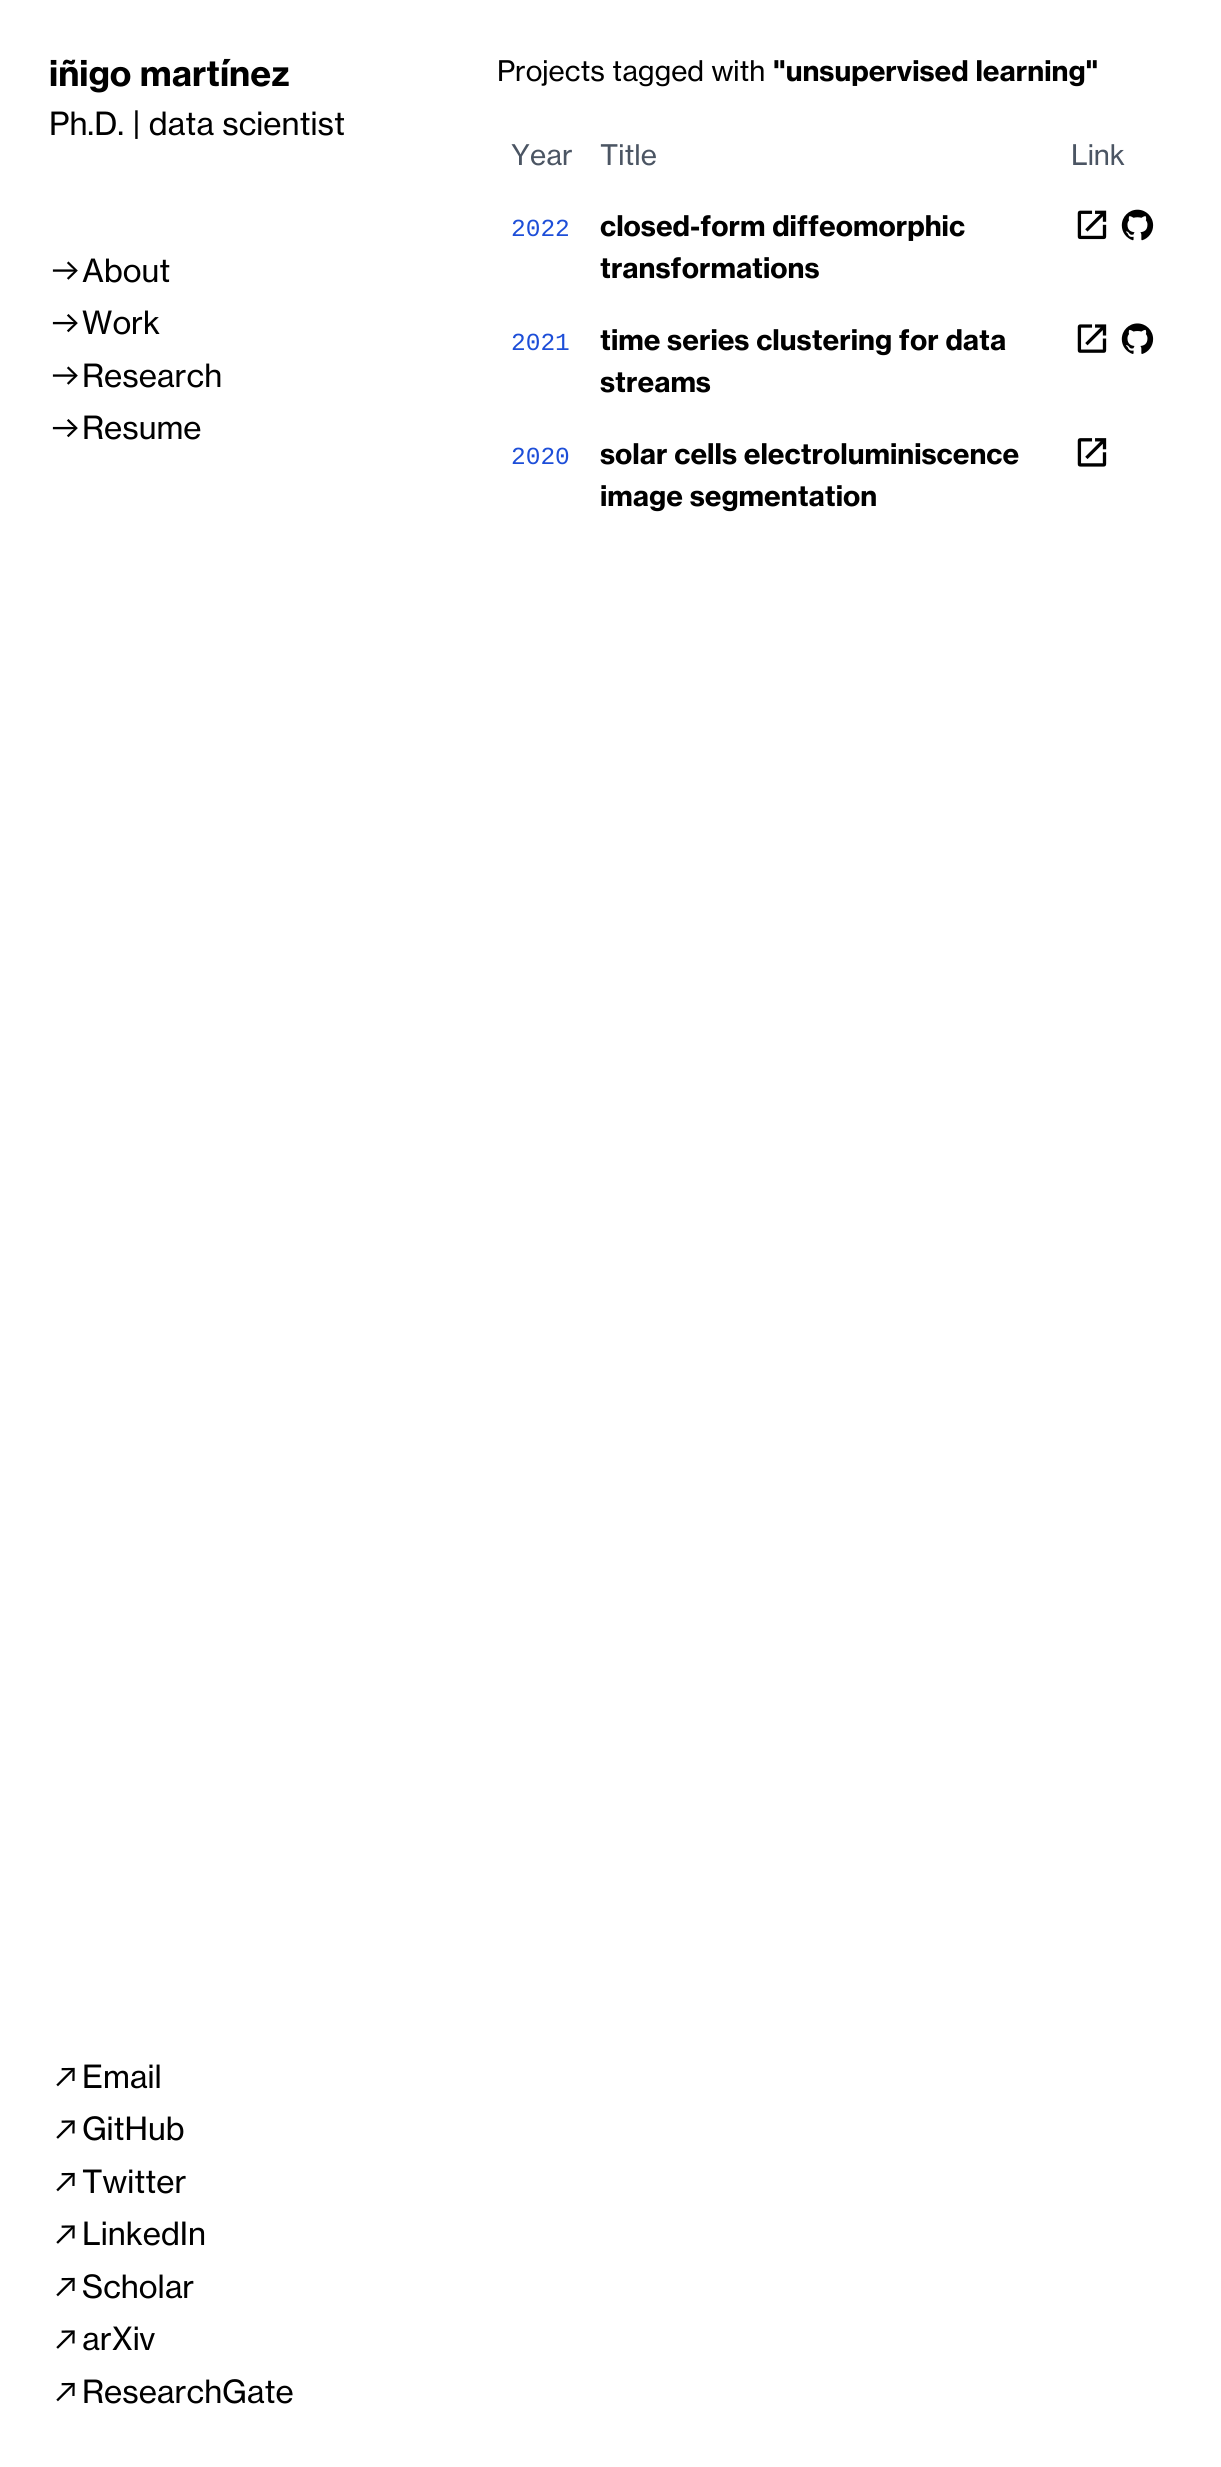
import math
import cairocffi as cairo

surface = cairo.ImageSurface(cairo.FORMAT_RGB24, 1221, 2467)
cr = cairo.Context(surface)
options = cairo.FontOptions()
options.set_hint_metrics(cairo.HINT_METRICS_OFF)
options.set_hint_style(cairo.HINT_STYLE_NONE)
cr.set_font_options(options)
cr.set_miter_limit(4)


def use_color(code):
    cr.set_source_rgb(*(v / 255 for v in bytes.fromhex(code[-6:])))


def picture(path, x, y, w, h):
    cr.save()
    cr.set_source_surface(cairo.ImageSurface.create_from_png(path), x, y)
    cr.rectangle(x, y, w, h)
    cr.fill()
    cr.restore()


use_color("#ffffff")
cr.paint()
cr.select_font_face("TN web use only", cairo.FONT_SLANT_NORMAL, cairo.FONT_WEIGHT_BOLD)
cr.set_font_size(35)
use_color("#000000")
cr.move_to(49, 86)
cr.show_text("iñigo martínez")
cr.select_font_face("TN web use only")
cr.set_font_size(31.5)
cr.move_to(49, 135)
cr.show_text("Ph.D. | data scientist")
picture("img1.png", 52, 261, 26, 19)
cr.move_to(82, 282)
cr.show_text("About")
picture("img2.png", 52, 314, 26, 19)
cr.move_to(82, 334)
cr.show_text("Work")
picture("img1.png", 52, 366, 26, 19)
cr.move_to(82, 387)
cr.show_text("Research")
picture("img2.png", 52, 419, 26, 19)
cr.move_to(82, 439)
cr.show_text("Resume")
picture("img3.png", 56, 2067, 19, 20)
cr.move_to(82, 2088)
cr.show_text("Email")
picture("img4.png", 56, 2120, 19, 19)
cr.move_to(82, 2140)
cr.show_text("GitHub")
picture("img3.png", 56, 2172, 19, 20)
cr.move_to(82, 2193)
cr.show_text("Twitter")
picture("img4.png", 56, 2225, 19, 19)
cr.move_to(82, 2245)
cr.show_text("LinkedIn")
picture("img3.png", 56, 2277, 19, 20)
cr.move_to(82, 2298)
cr.show_text("Scholar")
picture("img4.png", 56, 2330, 19, 19)
cr.move_to(82, 2350)
cr.show_text("arXiv")
picture("img3.png", 56, 2382, 19, 20)
cr.move_to(82, 2403)
cr.show_text("ResearchGate")
cr.set_font_size(28)
cr.move_to(497, 81)
cr.show_text("Projects tagged with")
cr.select_font_face("TN web use only", cairo.FONT_SLANT_NORMAL, cairo.FONT_WEIGHT_BOLD)
cr.move_to(773, 81)
cr.show_text("\"unsupervised learning\"")
cr.select_font_face("TN web use only")
use_color("#4b5563")
cr.move_to(511, 165)
cr.show_text("Year")
cr.move_to(600, 165)
cr.show_text("Title")
cr.move_to(1071, 165)
cr.show_text("Link")
cr.select_font_face("Liberation Mono")
cr.set_font_size(24.5)
use_color("#1d4ed8")
cr.move_to(511, 236)
cr.show_text("2022")
cr.select_font_face("TN web use only", cairo.FONT_SLANT_NORMAL, cairo.FONT_WEIGHT_BOLD)
cr.set_font_size(28)
use_color("#000000")
cr.move_to(600, 236)
cr.show_text("closed-form diffeomorphic")
cr.move_to(600, 278)
cr.show_text("transformations")
picture("img5.png", 1077, 210, 30, 30)
picture("img6.png", 1121, 209, 33, 32)
cr.select_font_face("Liberation Mono")
cr.set_font_size(24.5)
use_color("#1d4ed8")
cr.move_to(511, 350)
cr.show_text("2021")
cr.select_font_face("TN web use only", cairo.FONT_SLANT_NORMAL, cairo.FONT_WEIGHT_BOLD)
cr.set_font_size(28)
use_color("#000000")
cr.move_to(600, 350)
cr.show_text("time series clustering for data")
cr.move_to(600, 392)
cr.show_text("streams")
picture("img7.png", 1077, 324, 30, 29)
picture("img8.png", 1121, 323, 33, 31)
cr.select_font_face("Liberation Mono")
cr.set_font_size(24.5)
use_color("#1d4ed8")
cr.move_to(511, 464)
cr.show_text("2020")
cr.select_font_face("TN web use only", cairo.FONT_SLANT_NORMAL, cairo.FONT_WEIGHT_BOLD)
cr.set_font_size(28)
use_color("#000000")
cr.move_to(600, 464)
cr.show_text("solar cells electroluminiscence")
cr.move_to(600, 506)
cr.show_text("image segmentation")
picture("img9.png", 1077, 438, 30, 29)
surface.write_to_png("result.png")
